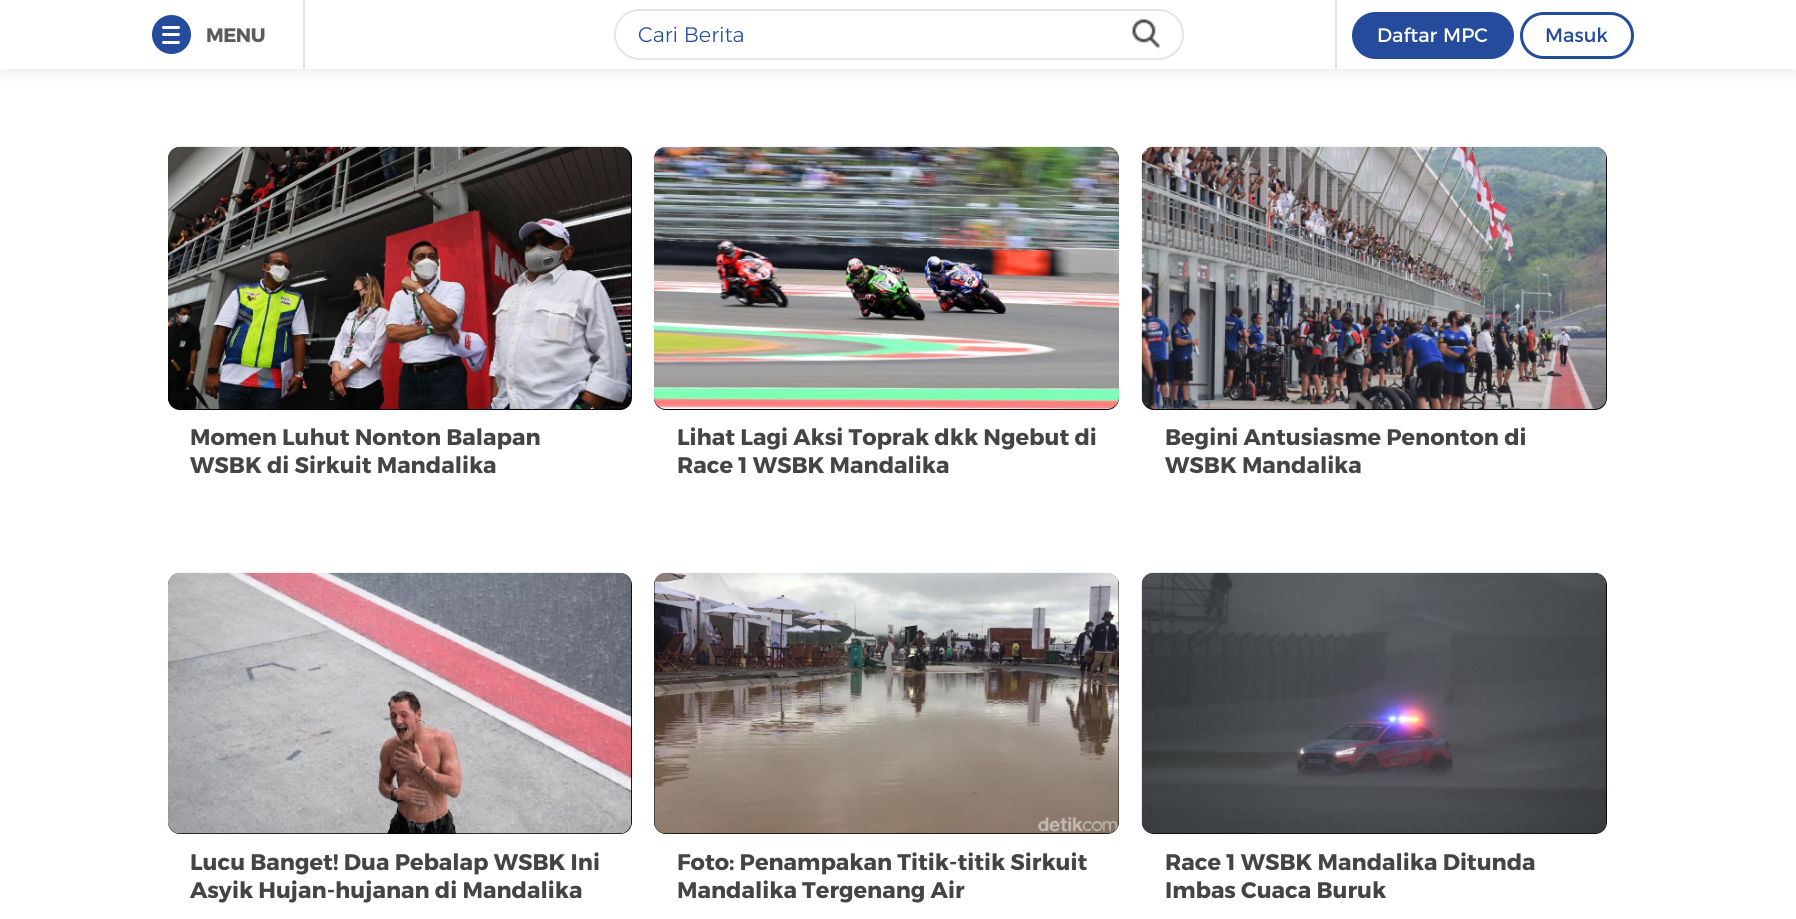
import math
import cairocffi as cairo

surface = cairo.ImageSurface(cairo.FORMAT_RGB24, 1796, 919)
cr = cairo.Context(surface)
options = cairo.FontOptions()
options.set_hint_metrics(cairo.HINT_METRICS_OFF)
options.set_hint_style(cairo.HINT_STYLE_NONE)
cr.set_font_options(options)
cr.set_miter_limit(4)


def use_color(code):
    cr.set_source_rgb(*(v / 255 for v in bytes.fromhex(code[-6:])))


def spaced_text(x, y, s, letter, word):
    cr.move_to(x, y)
    for ch in s:
        cr.show_text(ch)
        cr.rel_move_to(letter + word * (ch == ' '), 0)


def round_rect(x, y, w, h, r):
    cr.new_sub_path()
    for i, (u, v) in enumerate([(x + w - r, y + h - r), (x + r, y + h - r), (x + r, y + r), (x + w - r, y + r)]):
        cr.arc(u, v, r, i * math.pi / 2, (i + 1) * math.pi / 2)
    cr.close_path()


def shadow(x, y, w, h, r, blur, alpha):
    cr.push_group_with_content(cairo.CONTENT_ALPHA)
    cr.set_operator(cairo.OPERATOR_SOURCE)
    for i in range(15, -16, -2):
        e = blur * i / 6
        if min(w, h) + 2 * e > 0:
            cr.set_source_rgba(0, 0, 0, alpha * math.erfc((i - 1) / 8.5) / 2)
            round_rect(x - e, y - e, w + 2 * e, h + 2 * e, max(0, min(r + e + blur * .6, min(w, h) / 2 + e)))
            cr.fill()
    cr.mask(cr.pop_group())


def picture(path, x, y, w, h):
    cr.save()
    cr.set_source_surface(cairo.ImageSurface.create_from_png(path), x, y)
    cr.rectangle(x, y, w, h)
    cr.fill()
    cr.restore()


use_color("#ffffff")
cr.paint()
use_color("#000000")
shadow(0, 0, 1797, 69, 0, 11, 0.1)
use_color("#ffffff")
cr.rectangle(0, 0, 1796, 69)
cr.fill()
use_color("#e5e5e5")
cr.rectangle(303, 0, 2, 69)
cr.fill()
use_color("#244b9c")
cr.arc(171.5, 34.5, 19.5, 0, 2 * math.pi)
cr.fill()
use_color("#ffffff")
round_rect(162, 26, 18, 3, 1.5)
cr.fill()
round_rect(162, 33, 18, 3, 1.5)
cr.fill()
round_rect(162, 41, 18, 3, 1.5)
cr.fill()
cr.select_font_face("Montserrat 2", cairo.FONT_SLANT_NORMAL, cairo.FONT_WEIGHT_BOLD)
cr.set_font_size(19.5)
use_color("#5b5b5b")
spaced_text(206, 42, "MENU", -0.5, 0)
round_rect(615, 10, 568, 49, 24.5)
use_color("#e5e5e5")
cr.stroke()
cr.select_font_face("Montserrat Light")
cr.set_font_size(21)
use_color("#244b9c")
cr.move_to(638, 42)
cr.show_text("Cari Berita")
picture("img1.png", 1132, 19, 28, 30)
use_color("#e5e5e5")
cr.rectangle(1335, 0, 2, 69)
cr.fill()
use_color("#244b9c")
round_rect(1353.5, 13.5, 159, 44, 22)
cr.fill_preserve()
cr.set_line_width(3)
cr.stroke()
cr.select_font_face("Montserrat")
cr.set_font_size(19.5)
use_color("#ffffff")
cr.move_to(1377, 42)
cr.show_text("Daftar MPC")
round_rect(1521.5, 13.5, 111, 44, 22)
use_color("#244b9c")
cr.stroke()
cr.move_to(1545, 42)
cr.show_text("Masuk")
use_color("#000000")
round_rect(168, 147, 464, 263, 12)
cr.fill()
picture("img2.png", 168, 146, 464, 263)
cr.select_font_face("Montserrat", cairo.FONT_SLANT_NORMAL, cairo.FONT_WEIGHT_BOLD)
cr.set_font_size(22.5)
use_color("#444444")
cr.move_to(190, 445)
cr.show_text("Momen Luhut Nonton Balapan")
cr.move_to(190, 473)
cr.show_text("WSBK di Sirkuit Mandalika")
use_color("#000000")
round_rect(654, 147, 465, 263, 12)
cr.fill()
picture("img3.png", 654, 146, 465, 263)
use_color("#444444")
cr.move_to(677, 445)
cr.show_text("Lihat Lagi Aksi Toprak dkk Ngebut di")
cr.move_to(677, 473)
cr.show_text("Race 1 WSBK Mandalika")
use_color("#000000")
round_rect(1142, 147, 465, 263, 12)
cr.fill()
picture("img4.png", 1141, 146, 466, 263)
use_color("#444444")
cr.move_to(1165, 445)
cr.show_text("Begini Antusiasme Penonton di")
cr.move_to(1165, 473)
cr.show_text("WSBK Mandalika")
use_color("#000000")
round_rect(168, 573, 464, 261, 12)
cr.fill()
picture("img5.png", 168, 572, 464, 262)
use_color("#444444")
cr.move_to(190, 870)
cr.show_text("Lucu Banget! Dua Pebalap WSBK Ini")
cr.move_to(190, 898)
cr.show_text("Asyik Hujan-hujanan di Mandalika")
use_color("#000000")
round_rect(654, 573, 465, 261, 12)
cr.fill()
picture("img6.png", 654, 572, 465, 262)
use_color("#444444")
cr.move_to(677, 870)
cr.show_text("Foto: Penampakan Titik-titik Sirkuit")
cr.move_to(677, 898)
cr.show_text("Mandalika Tergenang Air")
use_color("#000000")
round_rect(1142, 573, 465, 261, 12)
cr.fill()
picture("img7.png", 1141, 572, 466, 262)
use_color("#444444")
cr.move_to(1165, 870)
cr.show_text("Race 1 WSBK Mandalika Ditunda")
cr.move_to(1165, 898)
cr.show_text("Imbas Cuaca Buruk")
surface.write_to_png("result.png")
